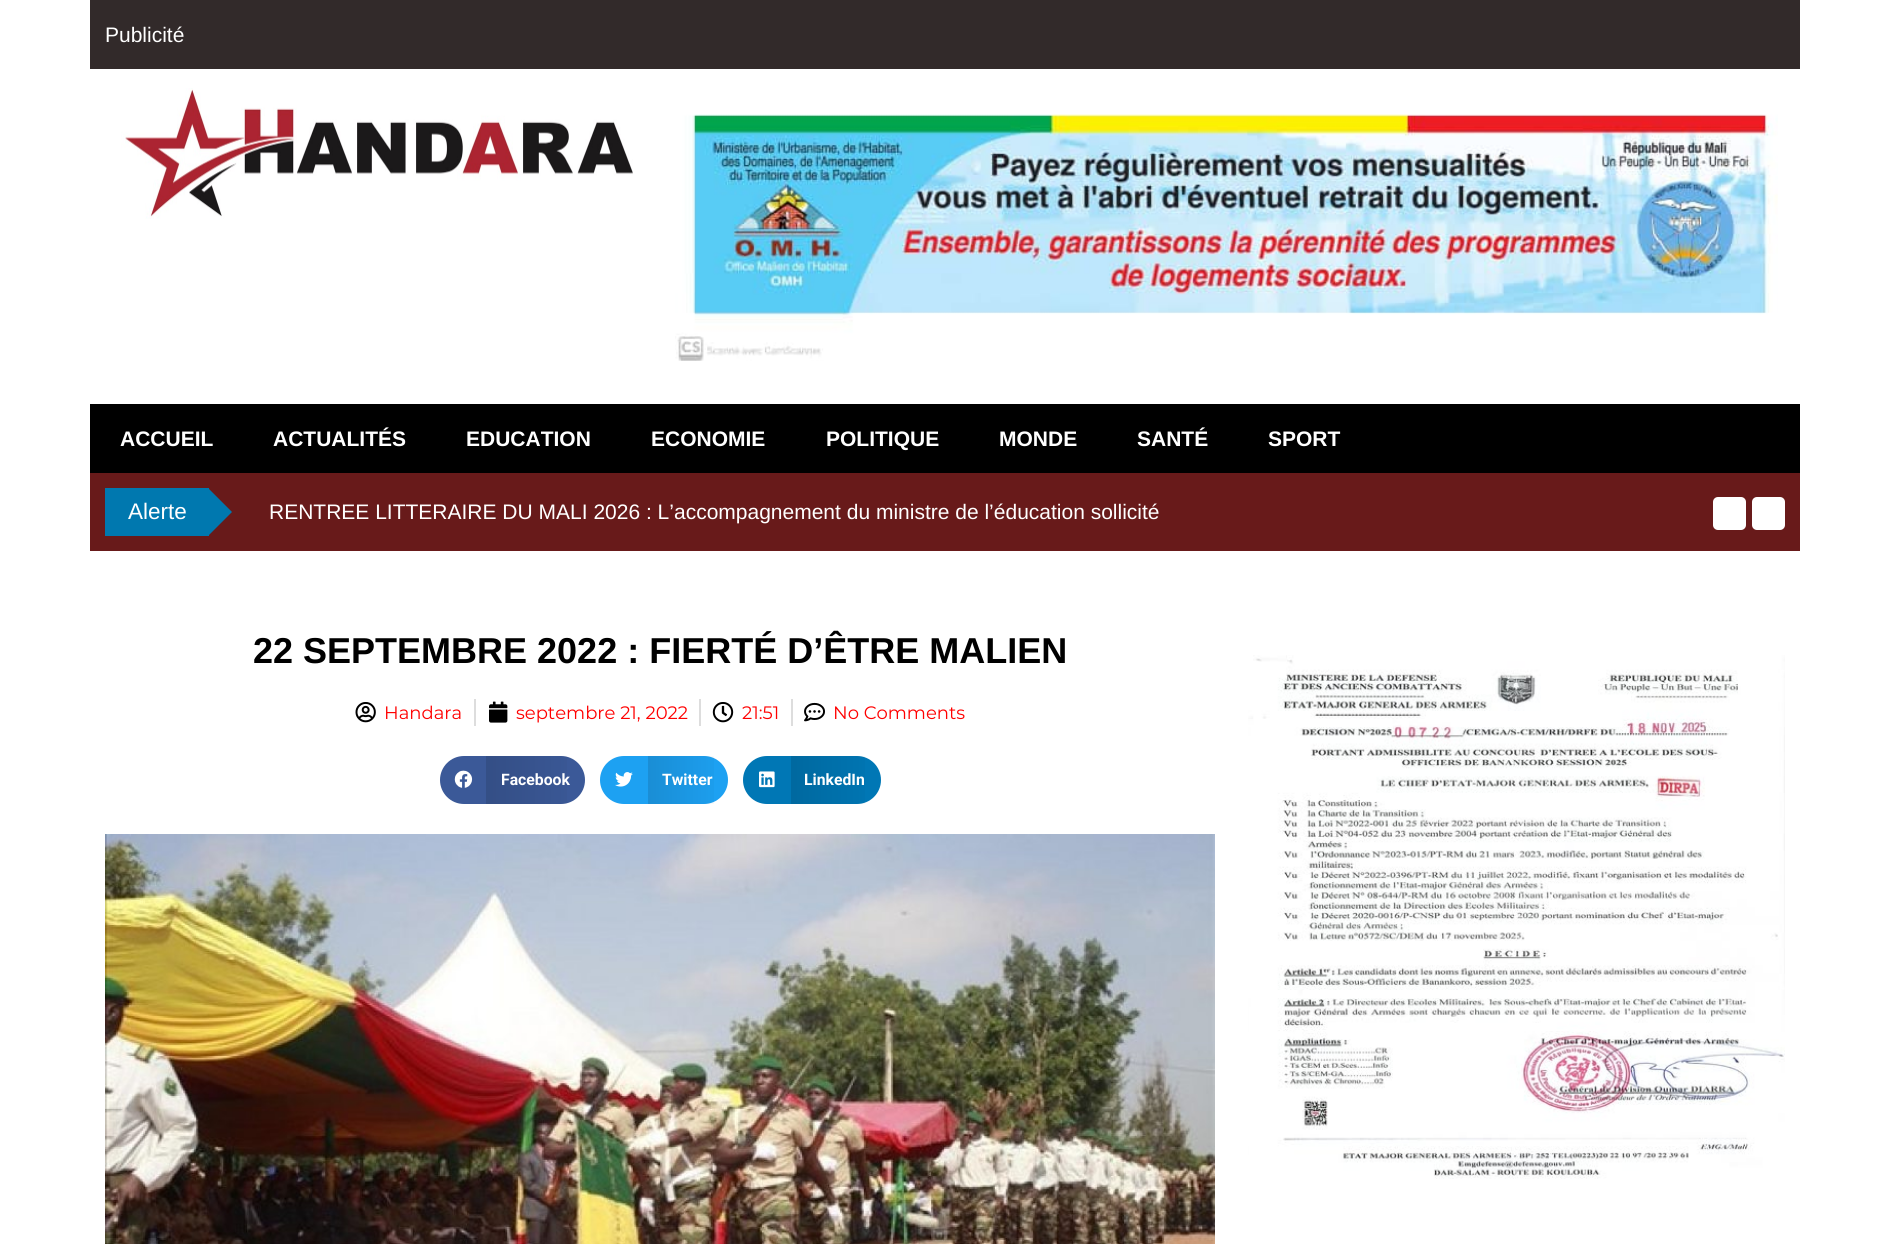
import math
import cairocffi as cairo

surface = cairo.ImageSurface(cairo.FORMAT_RGB24, 1889, 1244)
cr = cairo.Context(surface)
options = cairo.FontOptions()
options.set_hint_metrics(cairo.HINT_METRICS_OFF)
options.set_hint_style(cairo.HINT_STYLE_NONE)
cr.set_font_options(options)
cr.set_miter_limit(4)


def use_color(code):
    cr.set_source_rgb(*(v / 255 for v in bytes.fromhex(code[-6:])))


def round_rect(x, y, w, h, r):
    cr.new_sub_path()
    for i, (u, v) in enumerate([(x + w - r, y + h - r), (x + r, y + h - r), (x + r, y + r), (x + w - r, y + r)]):
        cr.arc(u, v, r, i * math.pi / 2, (i + 1) * math.pi / 2)
    cr.close_path()


def picture(path, x, y, w, h):
    cr.save()
    cr.set_source_surface(cairo.ImageSurface.create_from_png(path), x, y)
    cr.rectangle(x, y, w, h)
    cr.fill()
    cr.restore()


use_color("#ffffff")
cr.paint()
use_color("#322a2a")
cr.rectangle(90, 0, 1710, 69)
cr.fill()
cr.select_font_face("Liberation Sans")
cr.set_font_size(21)
use_color("#ffffff")
cr.move_to(105, 42)
cr.show_text("Publicité")
picture("img1.png", 121, 88, 512, 131)
picture("img2.png", 675, 114, 1103, 247)
use_color("#000000")
cr.rectangle(90, 404, 1710, 69)
cr.fill()
cr.select_font_face("Liberation Sans", cairo.FONT_SLANT_NORMAL, cairo.FONT_WEIGHT_BOLD)
use_color("#ffffff")
cr.move_to(120, 446)
cr.show_text("ACCUEIL")
cr.move_to(273, 446)
cr.show_text("ACTUALITÉS")
cr.move_to(466, 446)
cr.show_text("EDUCATION")
cr.move_to(651, 446)
cr.show_text("ECONOMIE")
cr.move_to(826, 446)
cr.show_text("POLITIQUE")
cr.move_to(999, 446)
cr.show_text("MONDE")
cr.move_to(1137, 446)
cr.show_text("SANTÉ")
cr.move_to(1268, 446)
cr.show_text("SPORT")
use_color("#681a1a")
cr.rectangle(90, 473, 1710, 78)
cr.fill()
use_color("#0078af")
cr.rectangle(105, 488, 104, 48)
cr.fill()
cr.select_font_face("Liberation Sans")
cr.set_font_size(22.5)
use_color("#ffffff")
cr.move_to(128, 519)
cr.show_text("Alerte")
use_color("#0078af")
cr.new_path()
cr.move_to(208, 536)
cr.line_to(208, 488)
cr.line_to(232, 512)
cr.close_path()
cr.fill()
cr.set_font_size(21)
use_color("#ffffff")
cr.move_to(269, 519)
cr.show_text("RENTREE LITTERAIRE DU MALI 2026 : L’accompagnement du ministre de l’éducation sollicité")
round_rect(1713, 497, 33, 33, 5)
cr.fill()
round_rect(1752, 497, 33, 33, 5)
cr.fill()
cr.select_font_face("Liberation Sans", cairo.FONT_SLANT_NORMAL, cairo.FONT_WEIGHT_BOLD)
cr.set_font_size(36)
use_color("#000000")
cr.move_to(253, 663)
cr.show_text("22 SEPTEMBRE 2022 : FIERTÉ D’ÊTRE MALIEN")
picture("img3.png", 355, 702, 21, 21)
cr.select_font_face("Montserrat")
cr.set_font_size(18)
use_color("#ff0000")
cr.move_to(384, 719)
cr.show_text("Handara")
use_color("#dddddd")
cr.rectangle(474, 699, 2, 27)
cr.fill()
picture("img4.png", 489, 701, 19, 22)
use_color("#ff0000")
cr.move_to(516, 719)
cr.show_text("septembre 21, 2022")
use_color("#dddddd")
cr.rectangle(699, 699, 2, 27)
cr.fill()
picture("img5.png", 712, 702, 22, 21)
use_color("#ff0000")
cr.move_to(742, 719)
cr.show_text("21:51")
use_color("#dddddd")
cr.rectangle(791, 699, 2, 27)
cr.fill()
picture("img6.png", 804, 702, 21, 20)
use_color("#ff0000")
cr.move_to(833, 719)
cr.show_text("No Comments")
use_color("#3b5998")
round_rect(440, 756, 145, 48, 24)
cr.fill()
picture("img7.png", 454, 770, 19, 18)
gradient = cairo.LinearGradient(486, 780, 585, 780)
gradient.add_color_stop_rgba(0, 0, 0, 0, 0.12)
gradient.add_color_stop_rgba(1, 0, 0, 0, 0)
cr.set_source(gradient)
cr.rectangle(486, 756, 81, 48)
cr.fill()
cr.select_font_face("Roboto", cairo.FONT_SLANT_NORMAL, cairo.FONT_WEIGHT_BOLD)
cr.set_font_size(15.75)
use_color("#ffffff")
cr.move_to(501, 785)
cr.show_text("Facebook")
use_color("#1da1f2")
round_rect(600, 756, 128, 48, 24)
cr.fill()
picture("img8.png", 615, 772, 18, 15)
gradient = cairo.LinearGradient(648, 780, 728, 780)
gradient.add_color_stop_rgba(0, 0, 0, 0, 0.12)
gradient.add_color_stop_rgba(1, 0, 0, 0, 0)
cr.set_source(gradient)
cr.rectangle(648, 756, 66, 48)
cr.fill()
use_color("#ffffff")
cr.move_to(662, 785)
cr.show_text("Twitter")
use_color("#0077b5")
round_rect(743, 756, 138, 48, 24)
cr.fill()
picture("img9.png", 759, 771, 16, 17)
gradient = cairo.LinearGradient(791, 780, 881, 780)
gradient.add_color_stop_rgba(0, 0, 0, 0, 0.12)
gradient.add_color_stop_rgba(1, 0, 0, 0, 0)
cr.set_source(gradient)
cr.rectangle(791, 756, 74, 48)
cr.fill()
use_color("#ffffff")
cr.move_to(804, 785)
cr.show_text("LinkedIn")
picture("img10.png", 105, 834, 1110, 410)
picture("img11.png", 1248, 655, 537, 524)
surface.write_to_png("result.png")
